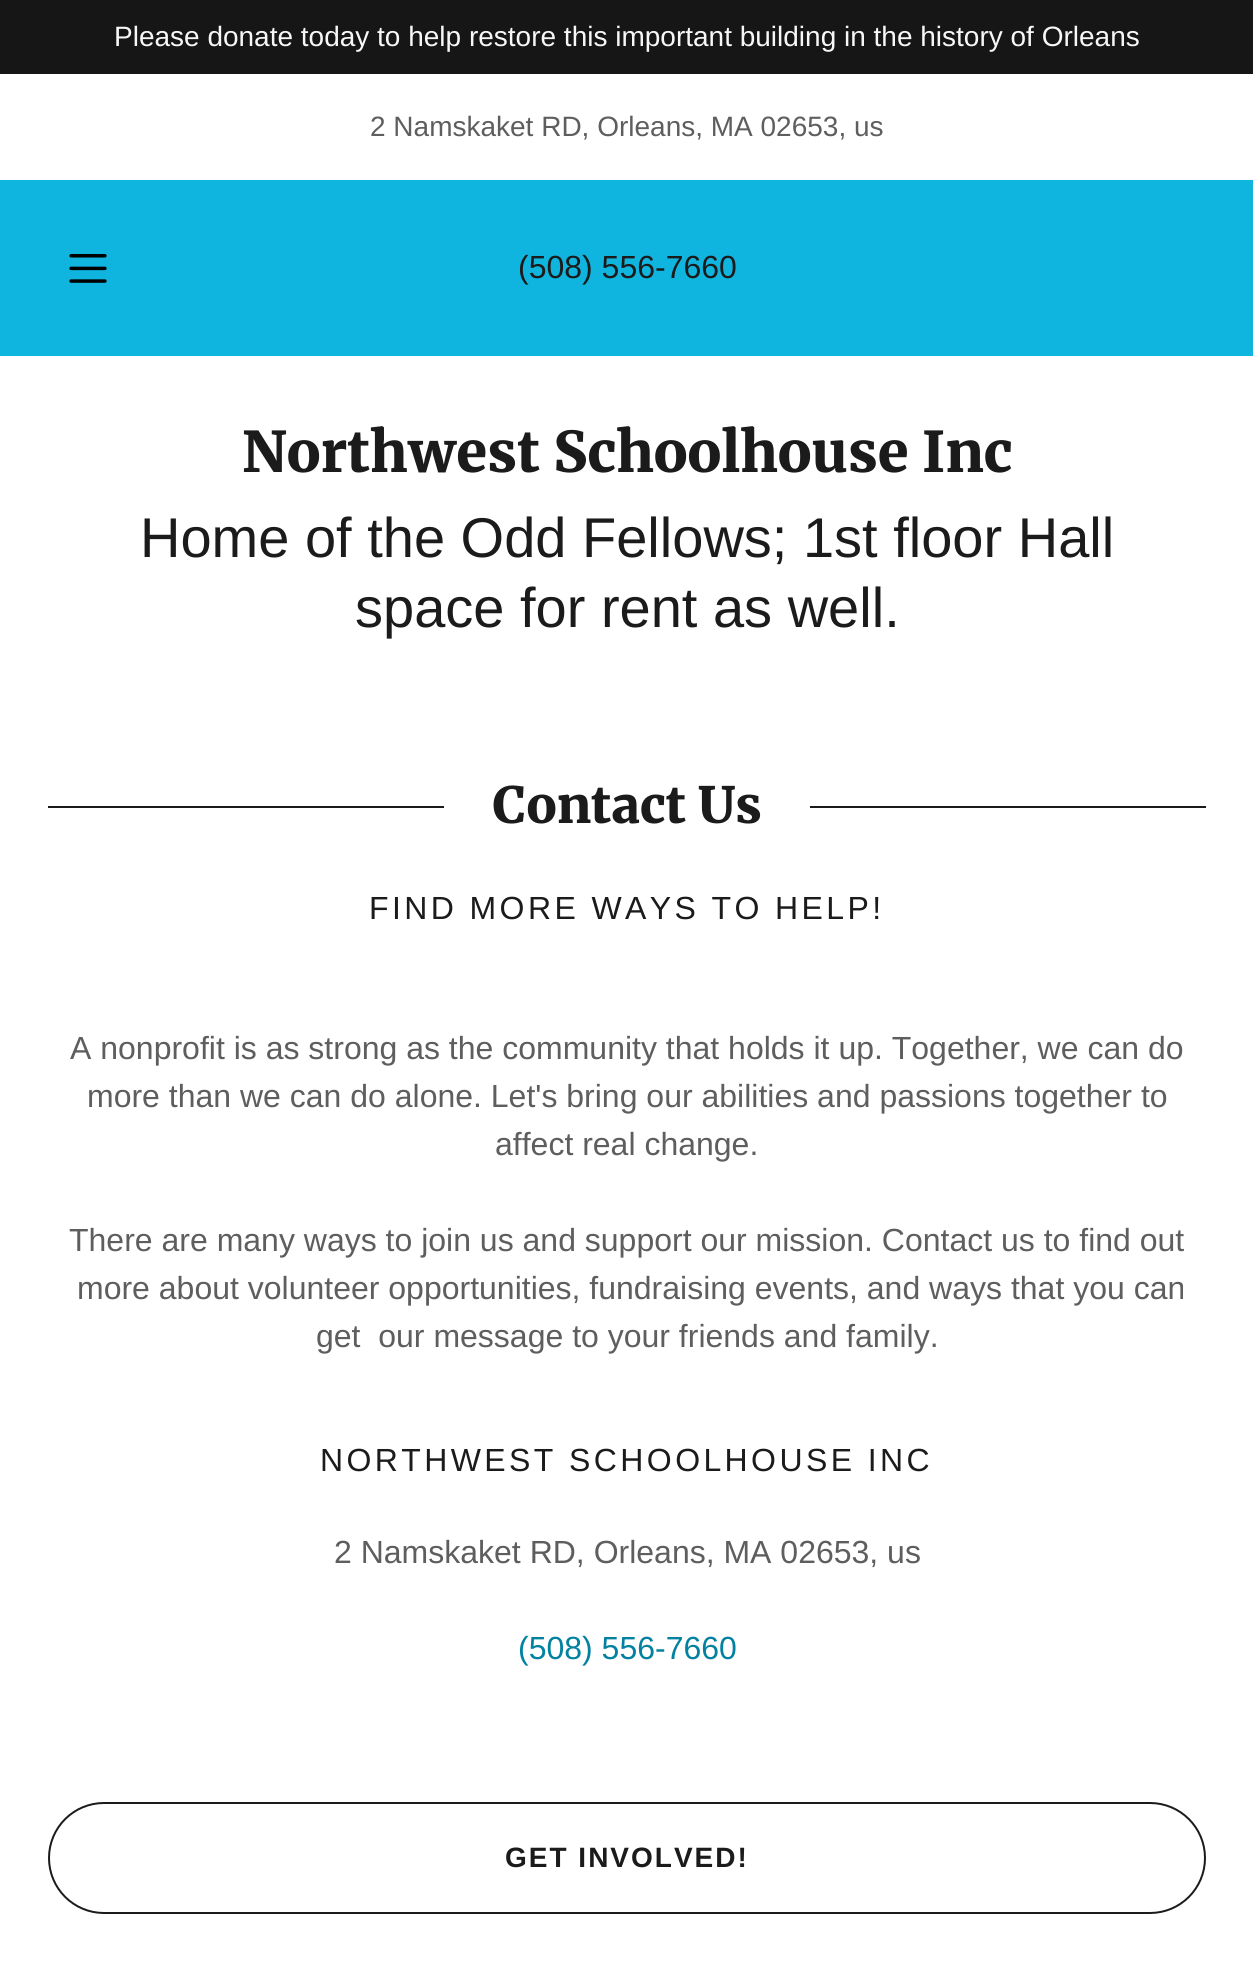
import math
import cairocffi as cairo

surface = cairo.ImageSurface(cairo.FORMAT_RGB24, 1253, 1965)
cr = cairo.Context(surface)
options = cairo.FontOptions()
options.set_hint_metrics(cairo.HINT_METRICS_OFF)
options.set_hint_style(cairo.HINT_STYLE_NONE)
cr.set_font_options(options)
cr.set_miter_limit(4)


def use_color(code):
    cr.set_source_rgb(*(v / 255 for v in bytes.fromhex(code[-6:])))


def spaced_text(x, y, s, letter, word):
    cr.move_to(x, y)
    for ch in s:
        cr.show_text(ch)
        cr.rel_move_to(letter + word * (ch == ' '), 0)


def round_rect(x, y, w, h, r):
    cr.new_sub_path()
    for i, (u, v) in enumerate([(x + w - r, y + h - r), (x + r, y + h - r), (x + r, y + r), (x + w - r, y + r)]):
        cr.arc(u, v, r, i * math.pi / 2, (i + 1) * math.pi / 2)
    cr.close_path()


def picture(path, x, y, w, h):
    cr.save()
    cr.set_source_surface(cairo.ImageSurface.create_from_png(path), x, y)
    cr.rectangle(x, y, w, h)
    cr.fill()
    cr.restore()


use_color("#ffffff")
cr.paint()
use_color("#161616")
cr.rectangle(0, 0, 1253, 74)
cr.fill()
cr.select_font_face("Liberation Sans")
cr.set_font_size(28)
use_color("#f7f7f7")
cr.move_to(114, 46)
cr.show_text("Please donate today to help restore this important building in the history of Orleans")
use_color("#5e5e5e")
cr.move_to(370, 136)
cr.show_text("2 Namskaket RD, Orleans, MA 02653, us")
use_color("#10b5df")
cr.rectangle(0, 180, 1253, 176)
cr.fill()
picture("img1.png", 69, 254, 38, 29)
cr.set_font_size(32)
use_color("#1b1b1b")
cr.move_to(518, 278)
cr.show_text("(508) 556-7660")
cr.select_font_face("Merriweather Light")
cr.set_font_size(56)
cr.move_to(242, 472)
cr.show_text("Northwest Schoolhouse Inc")
cr.select_font_face("Liberation Sans")
cr.move_to(140, 557)
cr.show_text("Home of the Odd Fellows; 1st floor Hall")
cr.move_to(355, 627)
cr.show_text("space for rent as well.")
cr.rectangle(48, 806, 396, 2)
cr.fill()
cr.select_font_face("Merriweather Light")
cr.set_font_size(50)
cr.move_to(493, 823)
cr.show_text("Contact Us")
cr.rectangle(810, 806, 396, 2)
cr.fill()
cr.select_font_face("Liberation Sans")
cr.set_font_size(32)
spaced_text(369, 919, "FIND MORE WAYS TO HELP!", 3.4, 0)
use_color("#5e5e5e")
cr.move_to(70, 1059)
cr.show_text("A nonprofit is as strong as the community that holds it up. Together, we can do")
cr.move_to(87, 1107)
cr.show_text("more than we can do alone. Let's bring our abilities and passions together to")
cr.move_to(495, 1155)
cr.show_text("affect real change.")
cr.move_to(69, 1251)
cr.show_text("There are many ways to join us and support our mission. Contact us to find out")
cr.move_to(77, 1299)
cr.show_text("more about volunteer opportunities, fundraising events, and ways that you can")
cr.move_to(316, 1347)
cr.show_text("get  our message to your friends and family.")
use_color("#1b1b1b")
spaced_text(320, 1471, "NORTHWEST SCHOOLHOUSE INC", 3.4, 0)
use_color("#5e5e5e")
cr.move_to(334, 1563)
cr.show_text("2 Namskaket RD, Orleans, MA 02653, us")
use_color("#0381a1")
cr.move_to(518, 1659)
cr.show_text("(508) 556-7660")
round_rect(49, 1803, 1156, 110, 55)
use_color("#1b1b1b")
cr.stroke()
cr.select_font_face("Liberation Sans", cairo.FONT_SLANT_NORMAL, cairo.FONT_WEIGHT_BOLD)
cr.set_font_size(28)
spaced_text(505, 1867, "GET INVOLVED!", 2, 0)
surface.write_to_png("result.png")
